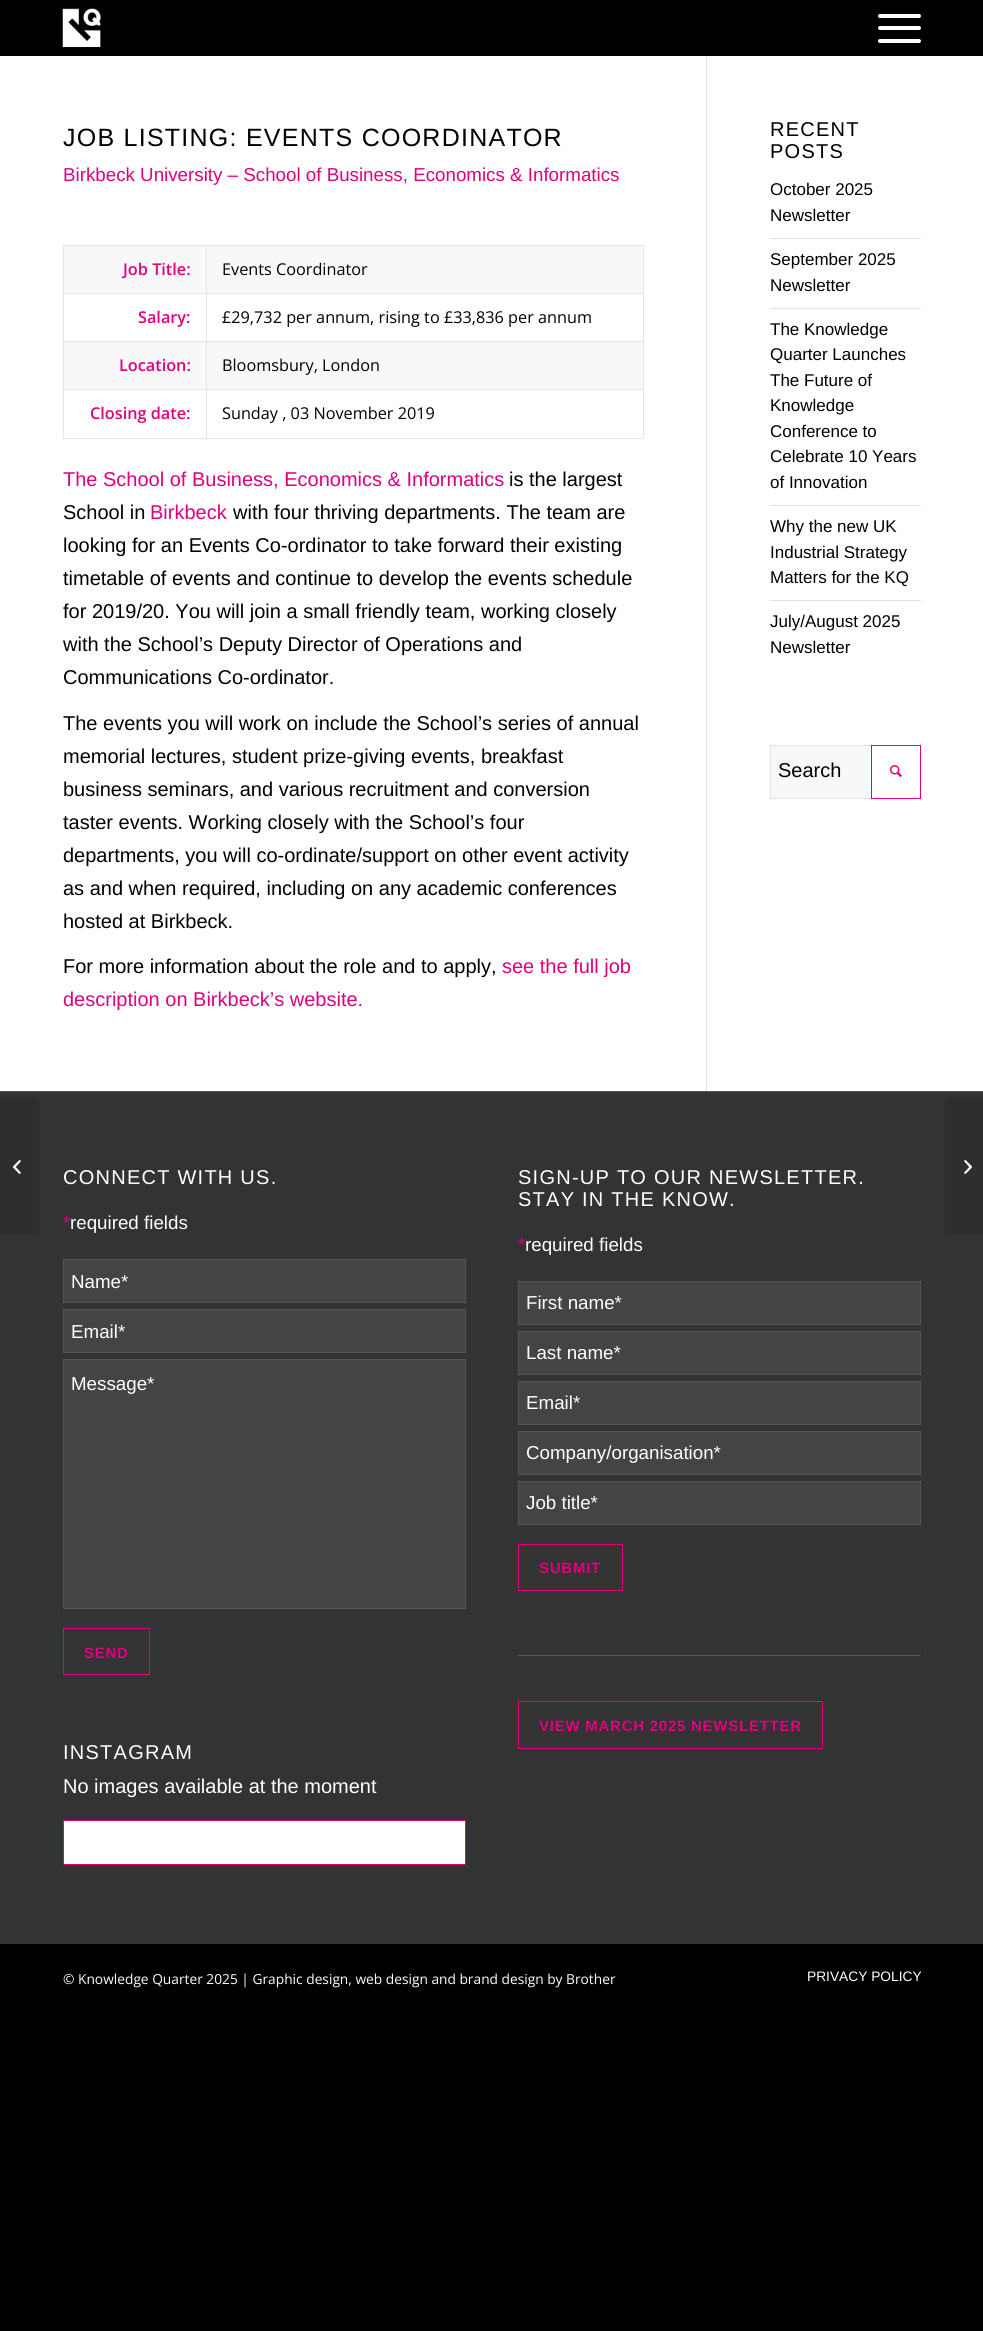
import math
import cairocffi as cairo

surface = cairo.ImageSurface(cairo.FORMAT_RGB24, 983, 2331)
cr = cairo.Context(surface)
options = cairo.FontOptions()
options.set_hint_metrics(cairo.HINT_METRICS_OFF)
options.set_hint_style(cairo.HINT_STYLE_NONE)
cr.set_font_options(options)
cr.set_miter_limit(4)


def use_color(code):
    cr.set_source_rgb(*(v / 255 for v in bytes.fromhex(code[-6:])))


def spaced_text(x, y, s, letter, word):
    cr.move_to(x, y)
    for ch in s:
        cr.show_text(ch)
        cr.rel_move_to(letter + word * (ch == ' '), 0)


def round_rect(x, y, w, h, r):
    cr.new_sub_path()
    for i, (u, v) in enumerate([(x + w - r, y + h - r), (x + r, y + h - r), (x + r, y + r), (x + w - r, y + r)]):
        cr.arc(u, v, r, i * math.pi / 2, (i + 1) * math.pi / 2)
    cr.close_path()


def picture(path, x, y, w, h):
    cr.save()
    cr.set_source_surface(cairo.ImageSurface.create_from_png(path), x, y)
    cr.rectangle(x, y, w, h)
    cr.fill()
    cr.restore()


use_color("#000000")
cr.paint()
picture("img1.png", 62, 8, 39, 40)
use_color("#ffffff")
round_rect(878, 26, 43, 4, 2)
cr.fill()
round_rect(878, 14, 43, 4, 2)
cr.fill()
round_rect(878, 39, 43, 4, 2)
cr.fill()
use_color("#333333")
cr.rectangle(0, 1092, 983, 852)
cr.fill()
use_color("#2e2e2e")
cr.new_path()
cr.move_to(0, 1098)
cr.line_to(34, 1098)
cr.curve_to(37, 1098, 39, 1100, 39, 1103)
cr.line_to(39, 1230)
cr.curve_to(39, 1233, 37, 1235, 34, 1235)
cr.line_to(0, 1235)
cr.close_path()
cr.fill()
picture("img2.png", 12, 1160, 9, 14)
use_color("#ffffff")
cr.rectangle(0, 56, 983, 1035)
cr.fill()
use_color("#e1e1e1")
cr.rectangle(706, 56, 1, 1035)
cr.fill()
cr.select_font_face("Liberation Sans")
cr.set_font_size(25)
use_color("#000000")
spaced_text(63, 146, "JOB LISTING: EVENTS COORDINATOR", 1.25, 0)
cr.set_font_size(18.75)
use_color("#df007e")
cr.move_to(63, 181)
cr.show_text("Birkbeck University – School of Business, Economics & Informatics")
use_color("#f8f8f8")
cr.rectangle(64, 246, 579, 143)
cr.fill()
use_color("#e5e5e5")
cr.rectangle(63, 245, 581, 1)
cr.fill()
cr.rectangle(643, 293, 1, 146)
cr.fill()
cr.rectangle(643, 245, 1, 49)
cr.fill()
use_color("#ffffff")
cr.rectangle(64, 294, 579, 47)
cr.fill()
use_color("#e5e5e5")
cr.rectangle(206, 438, 438, 1)
cr.fill()
cr.rectangle(206, 389, 1, 50)
cr.fill()
cr.rectangle(206, 389, 438, 1)
cr.fill()
cr.rectangle(206, 341, 1, 49)
cr.fill()
cr.rectangle(206, 341, 438, 1)
cr.fill()
cr.rectangle(206, 293, 1, 50)
cr.fill()
cr.rectangle(206, 293, 438, 1)
cr.fill()
cr.rectangle(206, 245, 1, 49)
cr.fill()
cr.rectangle(63, 438, 145, 1)
cr.fill()
cr.rectangle(63, 389, 1, 50)
cr.fill()
cr.rectangle(63, 389, 145, 1)
cr.fill()
cr.rectangle(63, 341, 1, 49)
cr.fill()
cr.rectangle(63, 341, 145, 1)
cr.fill()
cr.rectangle(63, 293, 1, 50)
cr.fill()
cr.rectangle(63, 293, 145, 1)
cr.fill()
cr.rectangle(63, 245, 1, 49)
cr.fill()
cr.select_font_face("Open Sans SemiBold")
cr.set_font_size(16.25)
use_color("#df007e")
cr.move_to(123, 275)
cr.show_text("Job Title:")
cr.select_font_face("Open Sans")
use_color("#000000")
cr.move_to(222, 275)
cr.show_text("Events Coordinator")
cr.select_font_face("Open Sans SemiBold")
use_color("#df007e")
cr.move_to(138, 323)
cr.show_text("Salary:")
cr.select_font_face("Open Sans")
use_color("#000000")
cr.move_to(222, 323)
cr.show_text("£29,732 per annum, rising to £33,836 per annum")
cr.select_font_face("Open Sans SemiBold")
use_color("#df007e")
cr.move_to(119, 371)
cr.show_text("Location:")
cr.select_font_face("Open Sans")
use_color("#000000")
cr.move_to(222, 371)
cr.show_text("Bloomsbury, London")
cr.select_font_face("Open Sans SemiBold")
use_color("#df007e")
cr.move_to(90, 419)
cr.show_text("Closing date:")
cr.select_font_face("Open Sans")
use_color("#000000")
cr.move_to(222, 419)
cr.show_text("Sunday , 03 November 2019")
cr.select_font_face("Liberation Sans")
cr.set_font_size(20)
use_color("#df007e")
cr.move_to(63, 486)
cr.show_text("The School of Business, Economics & Informatics")
use_color("#000000")
cr.move_to(509, 486)
cr.show_text("is the largest")
cr.move_to(63, 519)
cr.show_text("School in")
use_color("#df007e")
cr.move_to(150, 519)
cr.show_text("Birkbeck")
use_color("#000000")
cr.move_to(233, 519)
cr.show_text("with four thriving departments. The team are")
cr.move_to(63, 552)
cr.show_text("looking for an Events Co-ordinator to take forward their existing")
cr.move_to(63, 585)
cr.show_text("timetable of events and continue to develop the events schedule")
cr.move_to(63, 618)
cr.show_text("for 2019/20. You will join a small friendly team, working closely")
cr.move_to(63, 651)
cr.show_text("with the School’s Deputy Director of Operations and")
cr.move_to(63, 684)
cr.show_text("Communications Co-ordinator.")
cr.move_to(63, 730)
cr.show_text("The events you will work on include the School’s series of annual")
cr.move_to(63, 763)
cr.show_text("memorial lectures, student prize-giving events, breakfast")
cr.move_to(63, 796)
cr.show_text("business seminars, and various recruitment and conversion")
cr.move_to(63, 829)
cr.show_text("taster events. Working closely with the School’s four")
cr.move_to(63, 862)
cr.show_text("departments, you will co-ordinate/support on other event activity")
cr.move_to(63, 895)
cr.show_text("as and when required, including on any academic conferences")
cr.move_to(63, 928)
cr.show_text("hosted at Birkbeck.")
cr.move_to(63, 973)
cr.show_text("For more information about the role and to apply,")
use_color("#df007e")
cr.move_to(502, 973)
cr.show_text("see the full job")
cr.move_to(63, 1006)
cr.show_text("description on Birkbeck’s website.")
use_color("#000000")
spaced_text(770, 136, "RECENT", 1.25, 0)
spaced_text(770, 158, "POSTS", 1.25, 0)
cr.set_font_size(17)
cr.move_to(770, 195)
cr.show_text("October 2025")
cr.move_to(770, 221)
cr.show_text("Newsletter")
use_color("#e1e1e1")
cr.rectangle(770, 238, 151, 1)
cr.fill()
use_color("#000000")
cr.move_to(770, 265)
cr.show_text("September 2025")
cr.move_to(770, 291)
cr.show_text("Newsletter")
use_color("#e1e1e1")
cr.rectangle(770, 308, 151, 1)
cr.fill()
use_color("#000000")
cr.move_to(770, 335)
cr.show_text("The Knowledge")
cr.move_to(770, 360)
cr.show_text("Quarter Launches")
cr.move_to(770, 386)
cr.show_text("The Future of")
cr.move_to(770, 411)
cr.show_text("Knowledge")
cr.move_to(770, 437)
cr.show_text("Conference to")
cr.move_to(770, 462)
cr.show_text("Celebrate 10 Years")
cr.move_to(770, 488)
cr.show_text("of Innovation")
use_color("#e1e1e1")
cr.rectangle(770, 505, 151, 1)
cr.fill()
use_color("#000000")
cr.move_to(770, 532)
cr.show_text("Why the new UK")
cr.move_to(770, 558)
cr.show_text("Industrial Strategy")
cr.move_to(770, 583)
cr.show_text("Matters for the KQ")
use_color("#e1e1e1")
cr.rectangle(770, 600, 151, 1)
cr.fill()
use_color("#000000")
cr.move_to(770, 627)
cr.show_text("July/August 2025")
cr.move_to(770, 653)
cr.show_text("Newsletter")
use_color("#f8f8f8")
cr.rectangle(771, 746, 100, 52)
cr.fill()
cr.rectangle(770.5, 745.5, 150, 53)
use_color("#e1e1e1")
cr.set_line_width(1)
cr.stroke()
cr.set_font_size(20)
use_color("#000000")
cr.move_to(778, 777)
cr.show_text("Search")
cr.rectangle(871.5, 745.5, 49, 53)
use_color("#df007e")
cr.stroke()
picture("img3.png", 890, 765, 12, 12)
use_color("#555555")
cr.rectangle(0, 1091, 983, 1)
cr.fill()
use_color("#ffffff")
spaced_text(63, 1184, "CONNECT WITH US.", 1.25, 0)
cr.set_font_size(18.75)
use_color("#df007e")
cr.move_to(63, 1229)
cr.show_text("*")
use_color("#ffffff")
cr.move_to(70, 1229)
cr.show_text("required fields")
use_color("#444444")
cr.rectangle(63.5, 1259.5, 402, 43)
cr.fill_preserve()
use_color("#555555")
cr.stroke()
use_color("#ffffff")
cr.move_to(71, 1288)
cr.show_text("Name*")
use_color("#444444")
cr.rectangle(63.5, 1309.5, 402, 43)
cr.fill_preserve()
use_color("#555555")
cr.stroke()
use_color("#ffffff")
cr.move_to(71, 1338)
cr.show_text("Email*")
use_color("#444444")
cr.rectangle(63.5, 1359.5, 402, 249)
cr.fill_preserve()
use_color("#555555")
cr.stroke()
use_color("#ffffff")
cr.move_to(71, 1390)
cr.show_text("Message*")
cr.rectangle(63.5, 1628.5, 86, 46)
use_color("#df007e")
cr.stroke()
cr.select_font_face("Liberation Sans", cairo.FONT_SLANT_NORMAL, cairo.FONT_WEIGHT_BOLD)
cr.set_font_size(15)
spaced_text(84, 1658, "SEND", 0.75, 0)
cr.select_font_face("Liberation Sans")
cr.set_font_size(20)
use_color("#ffffff")
spaced_text(63, 1759, "INSTAGRAM", 1.25, 0)
cr.move_to(63, 1793)
cr.show_text("No images available at the moment")
cr.rectangle(63.5, 1820.5, 402, 44)
cr.fill_preserve()
use_color("#df007e")
cr.stroke()
use_color("#ffffff")
spaced_text(518, 1184, "SIGN-UP TO OUR NEWSLETTER.", 1.25, 0)
spaced_text(518, 1206, "STAY IN THE KNOW.", 1.25, 0)
cr.set_font_size(18.75)
use_color("#df007e")
cr.move_to(518, 1251)
cr.show_text("*")
use_color("#ffffff")
cr.move_to(525, 1251)
cr.show_text("required fields")
use_color("#444444")
cr.rectangle(518.5, 1281.5, 402, 43)
cr.fill_preserve()
use_color("#555555")
cr.stroke()
use_color("#ffffff")
cr.move_to(526, 1309)
cr.show_text("First name*")
use_color("#444444")
cr.rectangle(518.5, 1331.5, 402, 43)
cr.fill_preserve()
use_color("#555555")
cr.stroke()
use_color("#ffffff")
cr.move_to(526, 1359)
cr.show_text("Last name*")
use_color("#444444")
cr.rectangle(518.5, 1381.5, 402, 43)
cr.fill_preserve()
use_color("#555555")
cr.stroke()
use_color("#ffffff")
cr.move_to(526, 1409)
cr.show_text("Email*")
use_color("#444444")
cr.rectangle(518.5, 1431.5, 402, 43)
cr.fill_preserve()
use_color("#555555")
cr.stroke()
use_color("#ffffff")
cr.move_to(526, 1459)
cr.show_text("Company/organisation*")
use_color("#444444")
cr.rectangle(518.5, 1481.5, 402, 43)
cr.fill_preserve()
use_color("#555555")
cr.stroke()
use_color("#ffffff")
cr.move_to(526, 1509)
cr.show_text("Job title*")
cr.rectangle(518.5, 1544.5, 104, 46)
use_color("#df007e")
cr.stroke()
cr.select_font_face("Liberation Sans", cairo.FONT_SLANT_NORMAL, cairo.FONT_WEIGHT_BOLD)
cr.set_font_size(15)
spaced_text(539, 1573, "SUBMIT", 0.75, 0)
use_color("#555555")
cr.rectangle(518, 1655, 403, 1)
cr.fill()
cr.rectangle(518.5, 1701.5, 304, 47)
use_color("#df007e")
cr.stroke()
spaced_text(539, 1731, "VIEW MARCH 2025 NEWSLETTER", 0.75, 0)
cr.select_font_face("Open Sans")
cr.set_font_size(13.75)
use_color("#ffffff")
cr.move_to(63, 1984)
cr.show_text("© Knowledge Quarter 2025 | Graphic design, web design and brand design by Brother")
cr.select_font_face("Liberation Sans")
cr.move_to(807, 1981)
cr.show_text("PRIVACY POLICY")
use_color("#2e2e2e")
cr.new_path()
cr.move_to(950, 1098)
cr.line_to(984, 1098)
cr.line_to(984, 1235)
cr.line_to(950, 1235)
cr.curve_to(947, 1235, 945, 1233, 945, 1230)
cr.line_to(945, 1103)
cr.curve_to(945, 1100, 947, 1098, 950, 1098)
cr.close_path()
cr.fill()
picture("img4.png", 964, 1160, 8, 14)
surface.write_to_png("result.png")
